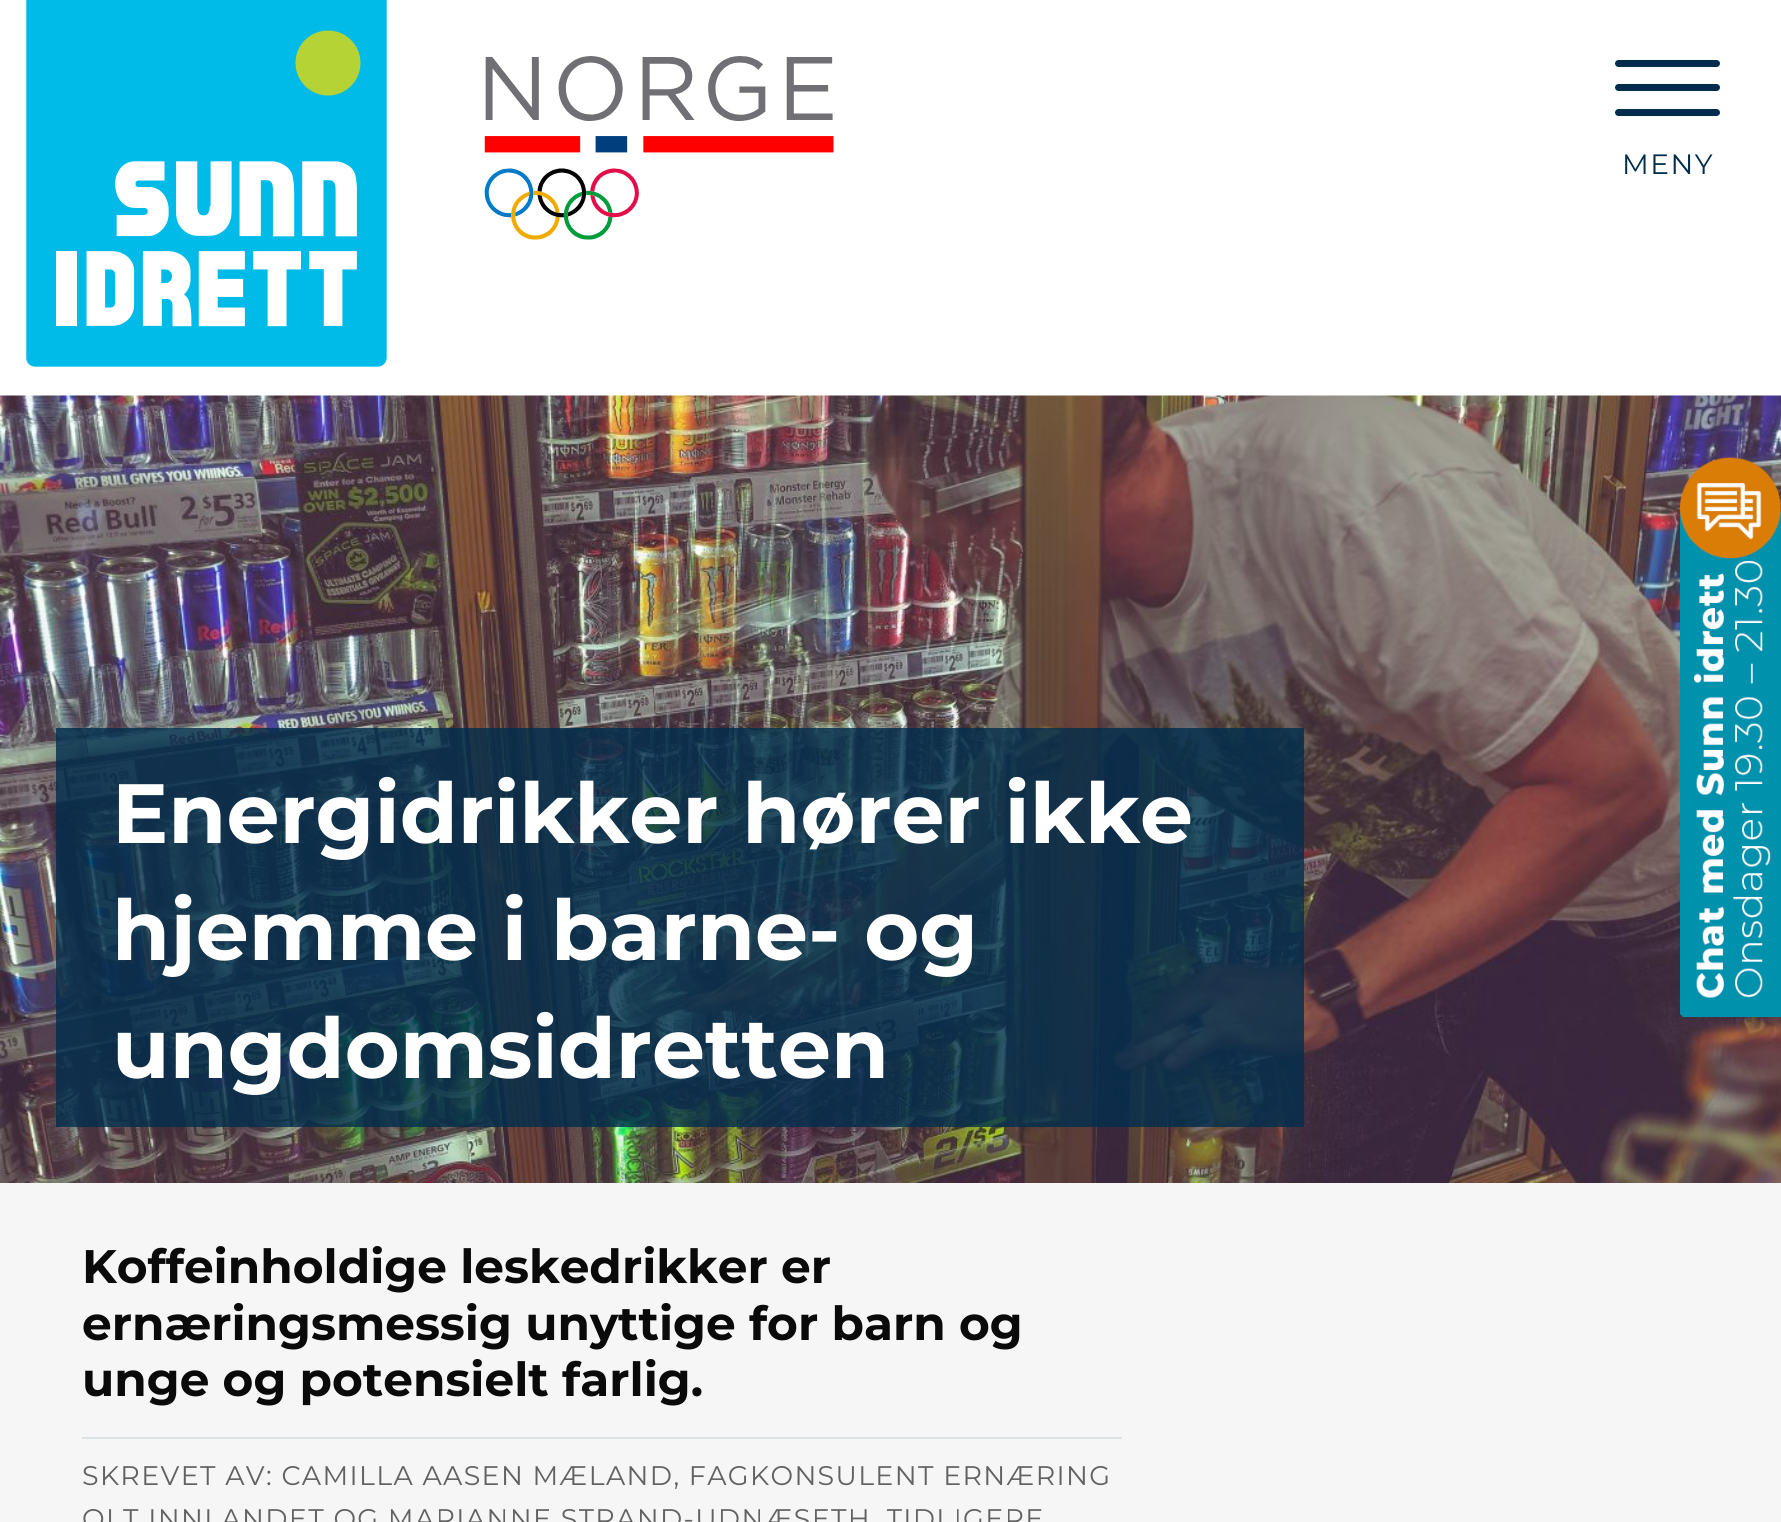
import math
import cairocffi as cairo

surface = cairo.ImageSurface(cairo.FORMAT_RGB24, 1781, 1522)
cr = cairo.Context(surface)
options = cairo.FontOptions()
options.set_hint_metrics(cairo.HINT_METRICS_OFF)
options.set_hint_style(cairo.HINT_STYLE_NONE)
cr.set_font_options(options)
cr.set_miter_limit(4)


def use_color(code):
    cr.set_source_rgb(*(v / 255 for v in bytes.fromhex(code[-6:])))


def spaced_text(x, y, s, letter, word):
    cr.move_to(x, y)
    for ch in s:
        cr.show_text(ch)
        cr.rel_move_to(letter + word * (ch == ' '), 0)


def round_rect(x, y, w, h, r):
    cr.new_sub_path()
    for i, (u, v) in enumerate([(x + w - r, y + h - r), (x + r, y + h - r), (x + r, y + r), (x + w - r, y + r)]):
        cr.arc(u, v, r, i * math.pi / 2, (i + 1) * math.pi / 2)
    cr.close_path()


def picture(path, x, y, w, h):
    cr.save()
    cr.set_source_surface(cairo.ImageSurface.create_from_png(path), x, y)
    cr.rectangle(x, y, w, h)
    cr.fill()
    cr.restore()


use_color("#ffffff")
cr.paint()
picture("img1.png", 26, 0, 361, 367)
picture("img2.png", 484, 56, 350, 184)
use_color("#012d4d")
round_rect(1615, 60, 105, 7, 3.5)
cr.fill()
round_rect(1615, 84, 105, 7, 3.5)
cr.fill()
round_rect(1615, 109, 105, 7, 3.5)
cr.fill()
cr.select_font_face("Montserrat")
cr.set_font_size(28)
spaced_text(1622, 174, "MENY", 1.5, 0)
picture("img3.png", 0, 395, 1781, 788)
cr.set_source_rgba(0.004, 0.176, 0.302, 0.8)
cr.rectangle(56, 728, 1248, 399)
cr.fill()
cr.select_font_face("Montserrat", cairo.FONT_SLANT_NORMAL, cairo.FONT_WEIGHT_BOLD)
cr.set_font_size(84)
use_color("#ffffff")
cr.move_to(112, 843)
cr.show_text("Energidrikker hører ikke")
cr.move_to(112, 960)
cr.show_text("hjemme i barne- og")
cr.move_to(112, 1078)
cr.show_text("ungdomsidretten")
picture("img4.png", 1680, 457, 101, 560)
use_color("#f6f6f6")
cr.rectangle(0, 1183, 1781, 339)
cr.fill()
cr.set_font_size(47)
use_color("#0a0a0a")
cr.move_to(82, 1283)
cr.show_text("Koffeinholdige leskedrikker er")
cr.move_to(82, 1340)
cr.show_text("ernæringsmessig unyttige for barn og")
cr.move_to(82, 1396)
cr.show_text("unge og potensielt farlig.")
use_color("#dde2e5")
cr.rectangle(82, 1437, 1040, 2)
cr.fill()
cr.select_font_face("Montserrat")
cr.set_font_size(26.9)
use_color("#626262")
spaced_text(82, 1485, "SKREVET AV: CAMILLA AASEN MÆLAND, FAGKONSULENT ERNÆRING", 1.35, 0)
spaced_text(82, 1528, "OLT INNLANDET OG MARIANNE STRAND-UDNÆSETH, TIDLIGERE", 1.35, 0)
surface.write_to_png("result.png")
